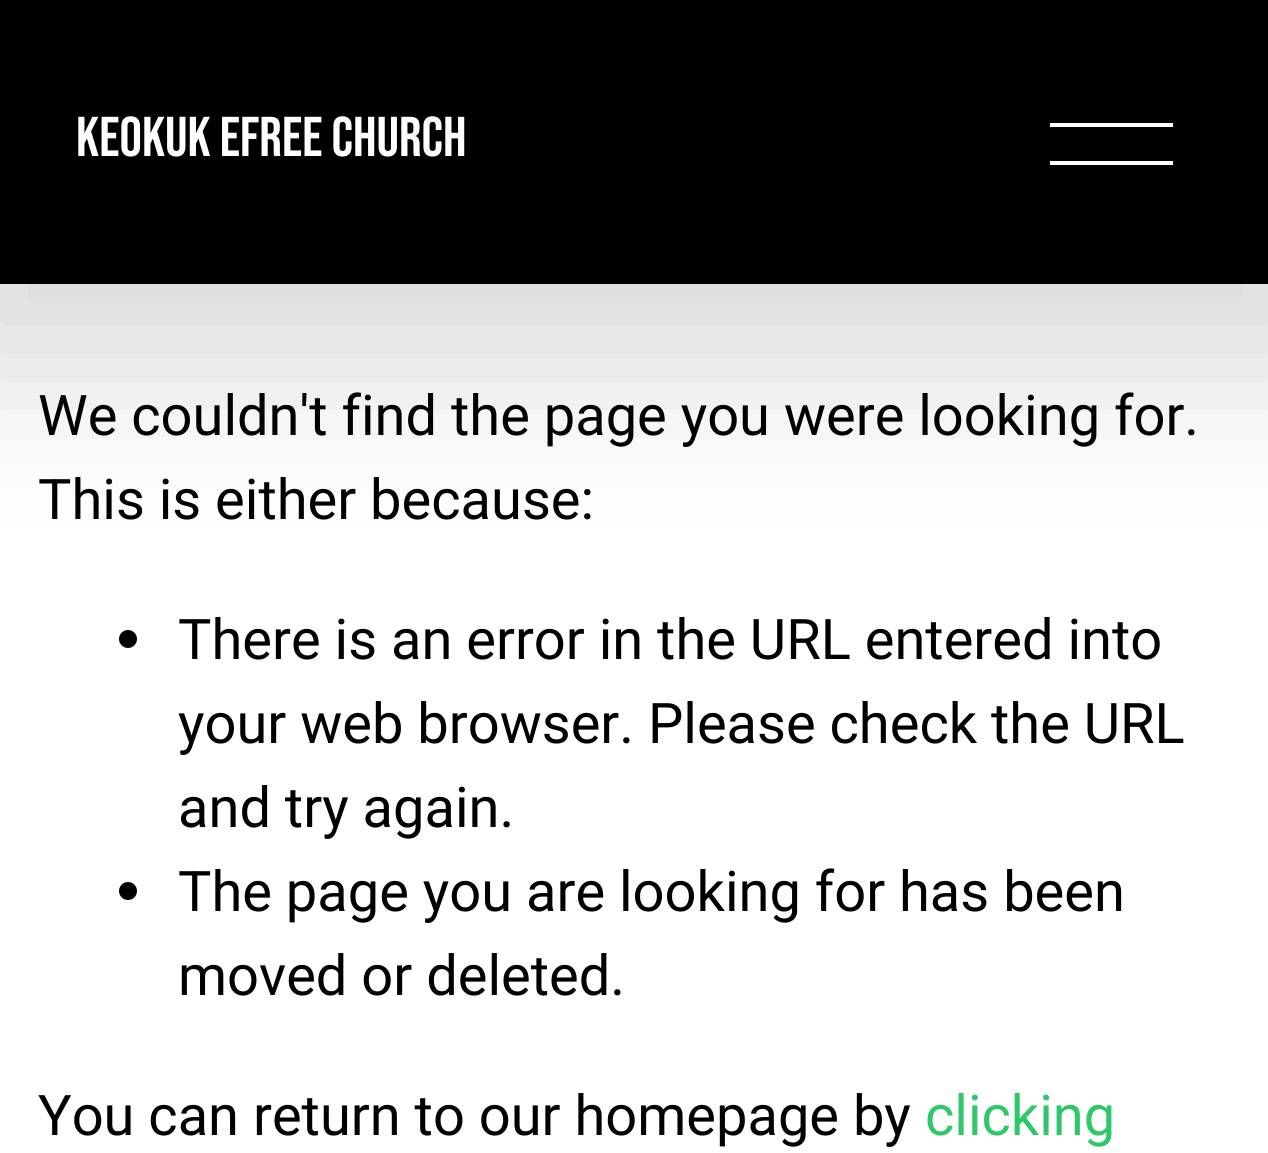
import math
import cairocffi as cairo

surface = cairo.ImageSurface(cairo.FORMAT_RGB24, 1268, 1153)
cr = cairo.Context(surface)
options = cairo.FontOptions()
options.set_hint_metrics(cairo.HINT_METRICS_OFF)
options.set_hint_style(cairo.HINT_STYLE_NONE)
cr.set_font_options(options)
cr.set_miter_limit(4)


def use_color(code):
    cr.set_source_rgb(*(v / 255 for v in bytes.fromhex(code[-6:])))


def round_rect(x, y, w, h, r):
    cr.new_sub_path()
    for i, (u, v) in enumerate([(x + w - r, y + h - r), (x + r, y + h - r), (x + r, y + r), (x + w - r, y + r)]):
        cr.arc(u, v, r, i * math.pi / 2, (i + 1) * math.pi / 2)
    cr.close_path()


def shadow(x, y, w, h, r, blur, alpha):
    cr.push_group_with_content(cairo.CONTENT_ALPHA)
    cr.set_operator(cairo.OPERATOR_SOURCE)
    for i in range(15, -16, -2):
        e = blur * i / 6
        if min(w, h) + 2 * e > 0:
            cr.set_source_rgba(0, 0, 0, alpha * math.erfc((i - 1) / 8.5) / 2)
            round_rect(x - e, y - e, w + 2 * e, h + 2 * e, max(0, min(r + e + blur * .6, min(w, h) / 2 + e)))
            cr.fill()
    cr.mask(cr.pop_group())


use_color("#ffffff")
cr.paint()
use_color("#000000")
cr.rectangle(0, 0, 1268, 284)
cr.fill()
cr.save()
cr.set_fill_rule(cairo.FILL_RULE_EVEN_ODD)
cr.new_path()
cr.move_to(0, 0)
cr.line_to(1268, 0)
cr.line_to(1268, 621)
cr.line_to(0, 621)
cr.close_path()
cr.move_to(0, 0)
cr.line_to(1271, 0)
cr.line_to(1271, 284)
cr.line_to(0, 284)
cr.close_path()
cr.clip()
use_color("#000000")
shadow(-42, 0, 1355, 368, 0, 84, 0.15)
cr.restore()
cr.select_font_face("Bebas Neue")
cr.set_font_size(56)
use_color("#ffffff")
cr.move_to(76, 156)
cr.show_text("KEOKUK EFREE CHURCH")
cr.rectangle(1050, 123, 123, 4)
cr.fill()
cr.rectangle(1050, 161, 123, 4)
cr.fill()
cr.select_font_face("Roboto")
use_color("#000000")
cr.move_to(38, 435)
cr.show_text("We couldn't find the page you were looking for.")
cr.move_to(38, 519)
cr.show_text("This is either because:")
cr.new_path()
cr.arc(128, 639, 9, 0, 2 * math.pi)
cr.fill()
cr.move_to(178, 659)
cr.show_text("There is an error in the URL entered into")
cr.move_to(178, 743)
cr.show_text("your web browser. Please check the URL")
cr.move_to(178, 827)
cr.show_text("and try again.")
cr.new_path()
cr.arc(128, 891, 9, 0, 2 * math.pi)
cr.fill()
cr.move_to(178, 911)
cr.show_text("The page you are looking for has been")
cr.move_to(178, 995)
cr.show_text("moved or deleted.")
cr.move_to(38, 1135)
cr.show_text("You can return to our homepage by")
use_color("#2ec869")
cr.move_to(925, 1135)
cr.show_text("clicking")
surface.write_to_png("result.png")
